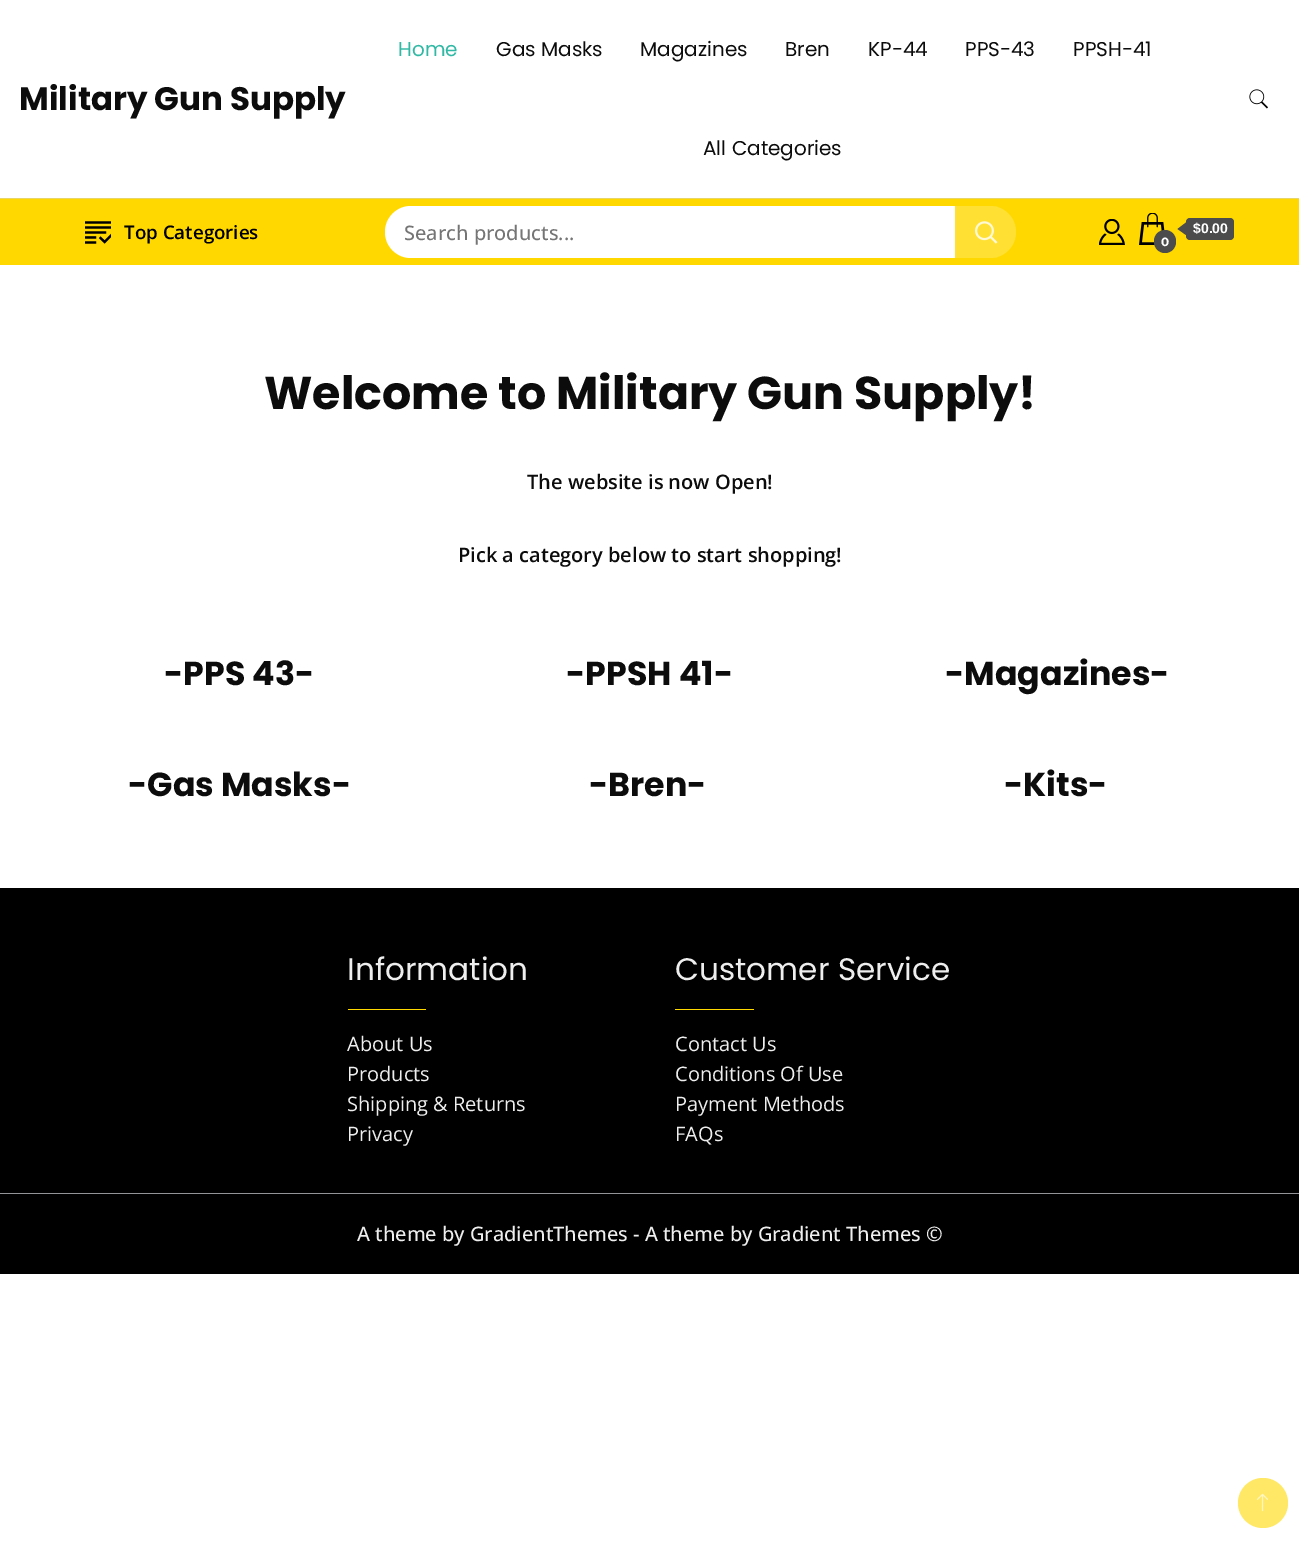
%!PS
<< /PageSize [1299 1558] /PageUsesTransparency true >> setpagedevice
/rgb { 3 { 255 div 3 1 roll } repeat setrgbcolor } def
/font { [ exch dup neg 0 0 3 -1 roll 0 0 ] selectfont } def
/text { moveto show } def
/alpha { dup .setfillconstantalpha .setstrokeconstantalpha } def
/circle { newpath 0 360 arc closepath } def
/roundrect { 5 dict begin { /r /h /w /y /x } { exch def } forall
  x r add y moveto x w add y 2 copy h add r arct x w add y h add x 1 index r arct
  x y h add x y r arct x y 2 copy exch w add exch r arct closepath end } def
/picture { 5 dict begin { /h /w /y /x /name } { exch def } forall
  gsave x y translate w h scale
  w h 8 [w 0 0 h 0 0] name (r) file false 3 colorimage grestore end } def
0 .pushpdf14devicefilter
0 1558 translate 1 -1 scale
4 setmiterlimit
255 255 255 rgb
0 0 1299 1558 rectfill
(img_01.rgb) 1249 89 19 20 picture
255 216 0 rgb
0 199 1299 66 rectfill
232 213 106 rgb
0 198 1299 1 rectfill
(img_02.rgb) 85 221 26 23 picture
255 255 255 rgb
385 206 631 52 26 roundrect fill
0.8 alpha
255 216 0 rgb
955 206 moveto 37 0 rlineto 14.5 0 26 11.5 26 26 rcurveto 0 14.5 -11.5 26 -26 26 rcurveto -37 0 rlineto closepath fill
1 alpha
(img_03.rgb) 975 221 23 23 picture
(img_04.rgb) 1099 219 26 26 picture
(img_05.rgb) 1139 213 26 32 picture
76 76 76 rgb
1186 218 48 22 4 roundrect fill
1186 222.5 moveto 0 12.5 rlineto -8.5 -6 rlineto closepath fill
1154 230 22 23 11 roundrect fill
0 0 0 rgb
0 888 1299 386 rectfill
255 216 0 rgb
348 1009 78 1 rectfill
675 1009 79 1 rectfill
146 148 151 rgb
0 1193 1299 1 rectfill
255 232 102 rgb
1263 1503 25 circle fill
(img_06.rgb) 1257 1493 11 19 picture
/Poppins-Bold 32.5 font
12 12 12 rgb
(Military Gun Supply) 19 110 text
/Poppins-Regular 20 font
50 185 165 rgb
(Home) 398 56 text
12 12 12 rgb
(Gas Masks) 496 56 text
(Magazines) 640 56 text
(Bren) 785 56 text
(KP-44) 868 56 text
(PPS-43) 965 56 text
(PPSH-41) 1073 56 text
(All Categories) 703 155 text
/OpenSans-SemiBold 18.75 font
0 0 0 rgb
(Top Categories) 124 239 text
/OpenSans-Medium 20 font
117 117 117 rgb
(Search products...) 404 240 text
/LiberationSans-Bold 14 font
255 255 255 rgb
($0.00) 1193 233 text
/Montserrat-Bold 12 font
(0) 1161 246 text
/Poppins-Bold 46 font
12 12 12 rgb
(Welcome to Military Gun Supply!) 264 409 text
/OpenSans-SemiBold 20 font
(The website is now Open!) 527 489 text
(Pick a category below to start shopping!) 458 562 text
/Poppins-Bold 33.25 font
(-PPS 43-) 164 685 text
(-PPSH 41-) 566 685 text
(-Magazines-) 945 685 text
(-Gas Masks-) 128 796 text
(-Bren-) 589 796 text
(-Kits-) 1004 796 text
/Poppins-Regular 31.1 font
238 238 238 rgb
(Information) 347 980 text
/OpenSans-Regular 20 font
(About Us) 347 1051 text
(Products) 347 1081 text
(Shipping & Returns) 347 1111 text
(Privacy) 347 1141 text
/Poppins-Regular 31.1 font
(Customer Service) 675 980 text
/OpenSans-Regular 20 font
(Contact Us) 675 1051 text
(Conditions Of Use) 675 1081 text
(Payment Methods) 675 1111 text
(FAQs) 675 1141 text
/OpenSans-Medium 20 font
(A theme by GradientThemes - A theme by Gradient Themes ©) 357 1241 text
.poppdf14devicefilter showpage
